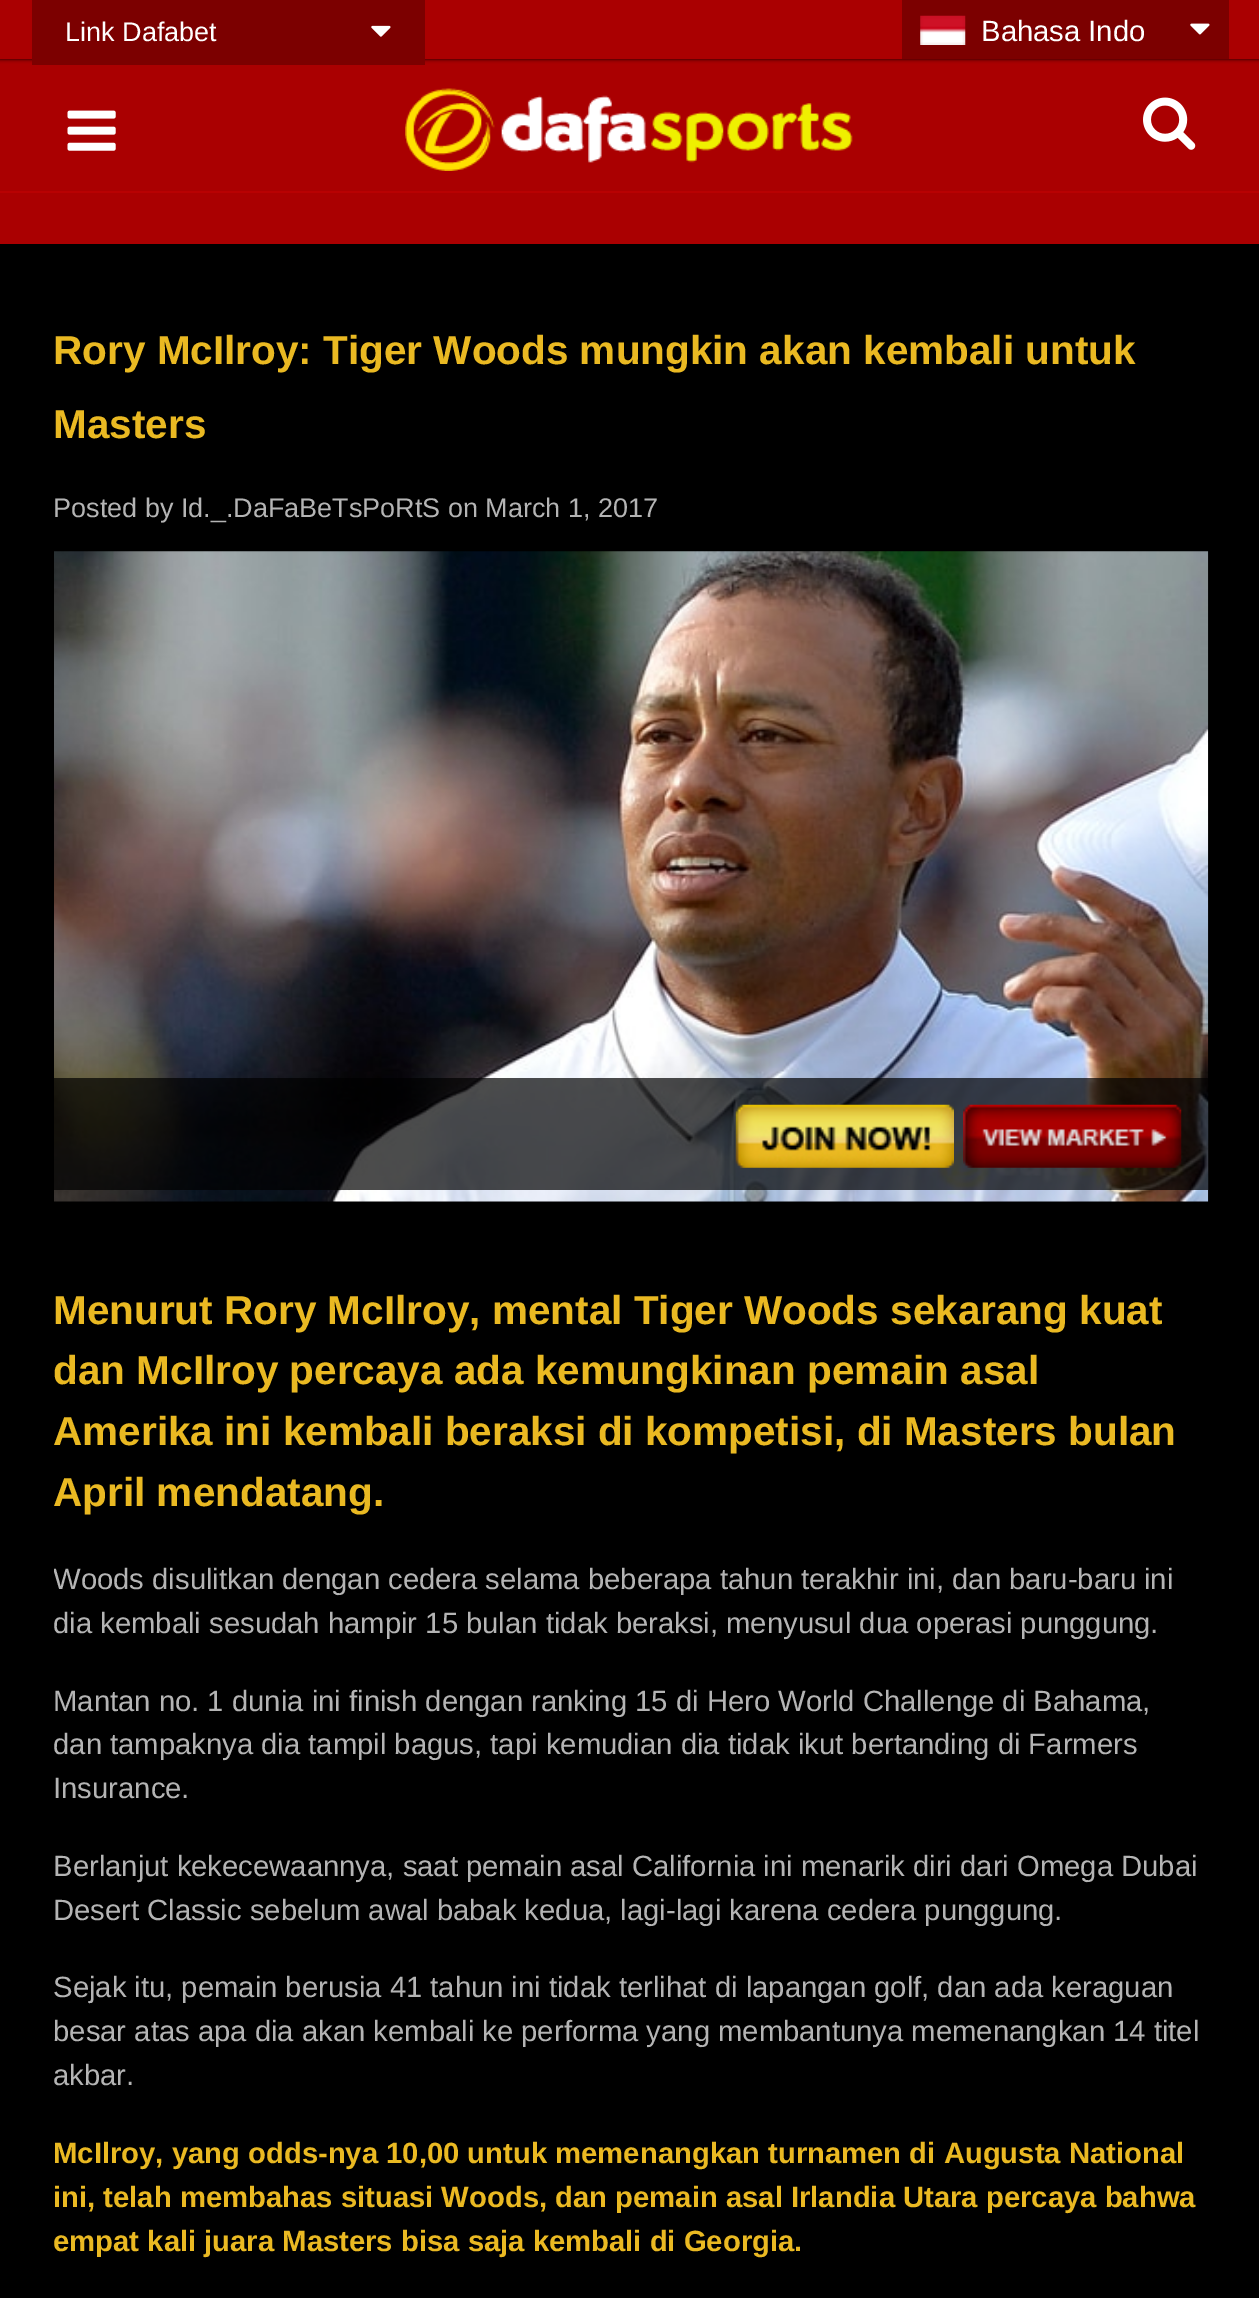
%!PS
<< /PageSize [1259 2298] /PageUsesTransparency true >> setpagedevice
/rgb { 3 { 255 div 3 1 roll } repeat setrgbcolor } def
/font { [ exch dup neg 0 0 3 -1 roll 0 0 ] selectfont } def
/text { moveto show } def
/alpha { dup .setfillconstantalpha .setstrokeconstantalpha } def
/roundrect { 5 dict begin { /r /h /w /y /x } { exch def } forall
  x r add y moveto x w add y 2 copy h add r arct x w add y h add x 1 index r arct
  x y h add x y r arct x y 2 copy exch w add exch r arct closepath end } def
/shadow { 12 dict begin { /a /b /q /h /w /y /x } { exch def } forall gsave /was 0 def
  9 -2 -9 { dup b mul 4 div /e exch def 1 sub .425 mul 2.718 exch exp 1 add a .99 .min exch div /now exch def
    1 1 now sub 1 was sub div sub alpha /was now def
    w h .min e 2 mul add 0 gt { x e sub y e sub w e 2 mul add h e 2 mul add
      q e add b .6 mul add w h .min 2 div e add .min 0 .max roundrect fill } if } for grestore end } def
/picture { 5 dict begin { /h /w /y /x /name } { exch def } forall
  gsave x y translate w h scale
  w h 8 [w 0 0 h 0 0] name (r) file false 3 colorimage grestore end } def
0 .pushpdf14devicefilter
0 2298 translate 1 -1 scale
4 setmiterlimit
0 0 0 rgb
0 0 1259 2298 rectfill
170 0 1 rgb
0 0 1259 244 rectfill
gsave
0 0 moveto 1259 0 rlineto 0 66 rlineto -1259 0 rlineto closepath 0 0 moveto 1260 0 rlineto 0 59 rlineto -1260 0 rlineto closepath eoclip newpath
0 0 0 rgb
0 0 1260 59 0 2 1 shadow
grestore
124 0 0 rgb
32 0 393 65 rectfill
(img_01.rgb) 371 25 20 12 picture
902 0 327 59 rectfill
(img_02.rgb) 920 15 46 30 picture
(img_03.rgb) 1190 23 20 12 picture
184 1 2 rgb
0 191 1259 2 rectfill
(img_04.rgb) 67 110 49 41 picture
(img_05.rgb) 405 88 448 83 picture
(img_06.rgb) 1143 97 53 53 picture
(img_07.rgb) 54 551 1155 651 picture
0.7 alpha
0 0 0 rgb
54 1078 1154 112 rectfill
1 alpha
(img_08.rgb) 735 1104 219 64 picture
(img_09.rgb) 963 1104 219 64 picture
/LiberationSans-Regular 27 font
255 255 255 rgb
(Link Dafabet) 65 41 text
/LiberationSans-Regular 29.25 font
(Bahasa Indo) 981 41 text
/LiberationSans-Bold 40.5 font
234 185 34 rgb
(Rory McIlroy: Tiger Woods mungkin akan kembali untuk) 53 364 text
(Masters) 53 438 text
/LiberationSans-Regular 27 font
180 180 180 rgb
(Posted by Id._.DaFaBeTsPoRtS on March 1, 2017) 53 517 text
/LiberationSans-Bold 40.5 font
234 185 34 rgb
(Menurut Rory McIlroy, mental Tiger Woods sekarang kuat) 53 1324 text
(dan McIlroy percaya ada kemungkinan pemain asal) 53 1384 text
(Amerika ini kembali beraksi di kompetisi, di Masters bulan) 53 1445 text
(April mendatang.) 53 1506 text
gsave
54 529 1154 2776 rectclip
/LiberationSans-Regular 29.25 font
180 180 180 rgb
(Woods disulitkan dengan cedera selama beberapa tahun terakhir ini, dan baru-baru ini) 53 1589 text
grestore
/LiberationSans-Regular 29.25 font
180 180 180 rgb
(dia kembali sesudah hampir 15 bulan tidak beraksi, menyusul dua operasi punggung.) 53 1633 text
(Mantan no. 1 dunia ini finish dengan ranking 15 di Hero World Challenge di Bahama,) 53 1711 text
(dan tampaknya dia tampil bagus, tapi kemudian dia tidak ikut bertanding di Farmers) 53 1754 text
(Insurance.) 53 1798 text
(Berlanjut kekecewaannya, saat pemain asal California ini menarik diri dari Omega Dubai) 53 1876 text
(Desert Classic sebelum awal babak kedua, lagi-lagi karena cedera punggung.) 53 1920 text
(Sejak itu, pemain berusia 41 tahun ini tidak terlihat di lapangan golf, dan ada keraguan) 53 1997 text
(besar atas apa dia akan kembali ke performa yang membantunya memenangkan 14 titel) 53 2041 text
(akbar.) 53 2085 text
/LiberationSans-Bold 29.25 font
234 185 34 rgb
(McIlroy, yang odds-nya 10,00 untuk memenangkan turnamen di Augusta National) 53 2163 text
(ini, telah membahas situasi Woods, dan pemain asal Irlandia Utara percaya bahwa) 53 2207 text
(empat kali juara Masters bisa saja kembali di Georgia.) 53 2251 text
.poppdf14devicefilter showpage
